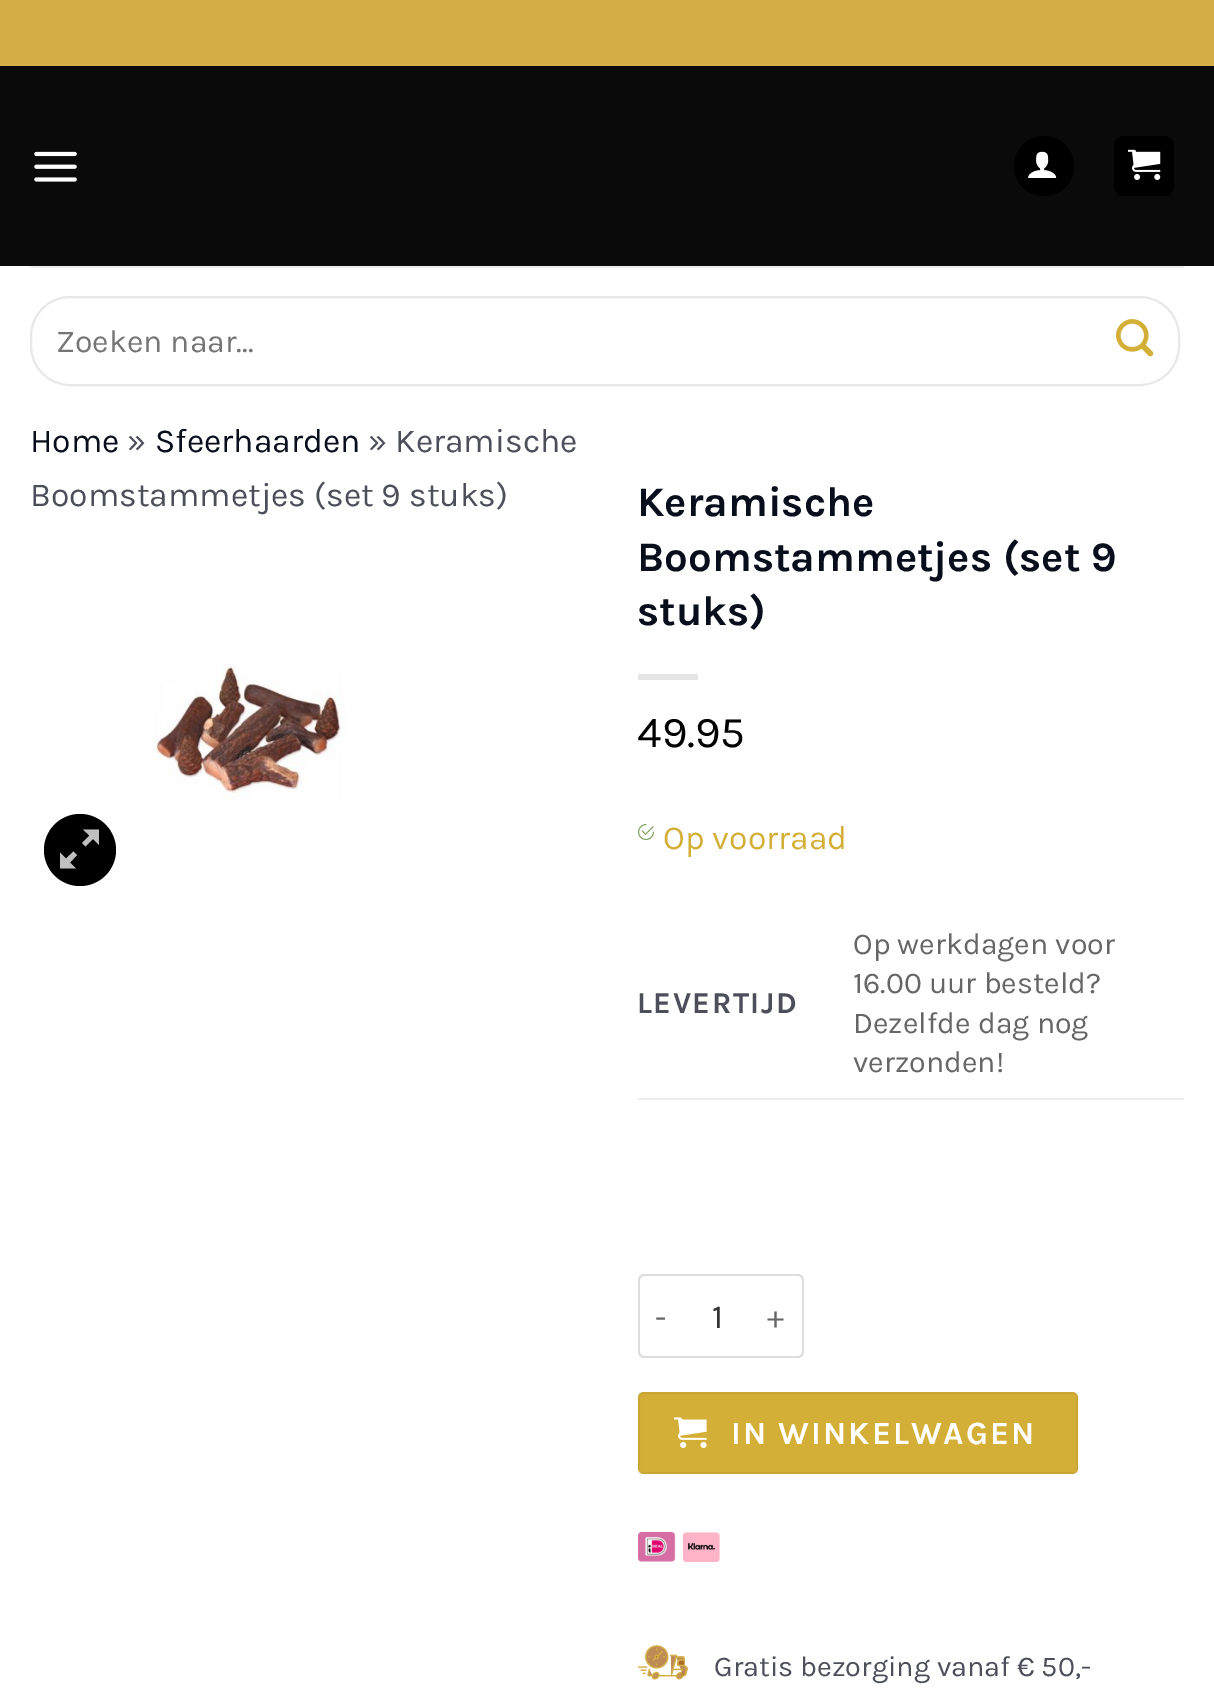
%!PS
<< /PageSize [1214 1696] /PageUsesTransparency true >> setpagedevice
/rgb { 3 { 255 div 3 1 roll } repeat setrgbcolor } def
/font { [ exch dup neg 0 0 3 -1 roll 0 0 ] selectfont } def
/text { moveto show } def
/alpha { dup .setfillconstantalpha .setstrokeconstantalpha } def
/circle { newpath 0 360 arc closepath } def
/roundrect { 5 dict begin { /r /h /w /y /x } { exch def } forall
  x r add y moveto x w add y 2 copy h add r arct x w add y h add x 1 index r arct
  x y h add x y r arct x y 2 copy exch w add exch r arct closepath end } def
/picture { 5 dict begin { /h /w /y /x /name } { exch def } forall
  gsave x y translate w h scale
  w h 8 [w 0 0 h 0 0] name (r) file false 3 colorimage grestore end } def
0 .pushpdf14devicefilter
0 1696 translate 1 -1 scale
4 setmiterlimit
255 255 255 rgb
0 0 1214 1696 rectfill
212 175 71 rgb
0 0 1214 66 rectfill
10 10 10 rgb
0 66 1214 200 rectfill
(img_01.rgb) 34 151 43 31 picture
0 0 0 rgb
1044 166 30 circle fill
(img_02.rgb) 1028 151 29 27 picture
1114 136 60 60 10 roundrect fill
(img_03.rgb) 1128 149 33 31 picture
237 237 239 rgb
30 266 1154 2 rectfill
232 232 232 rgb
2 setlinewidth
31 297 1148 88 39 roundrect stroke
(img_04.rgb) 1116 319 38 38 picture
(img_05.rgb) 153 664 193 137 picture
0 0 0 rgb
80 850 36 circle fill
192 192 192 rgb
99 829.5 moveto 0 15.5 rlineto -6 -6 rlineto -7.5 7.5 rlineto -3.5 -3.5 rlineto 7.5 -7.5 rlineto -6.5 -6 rlineto closepath 77 855 moveto -7 7.5 rlineto 6 6 rlineto -16 0 rlineto 0 -16 rlineto 6 6 rlineto 7.5 -7 rlineto closepath fill
230 230 230 rgb
638 674 60 6 rectfill
(img_06.rgb) 638 824 16 16 picture
236 236 236 rgb
638 1098 546 2 rectfill
221 221 221 rgb
644 1274 moveto 40 0 rlineto 0 84 rlineto -40 0 rlineto -3 0 -6 -3 -6 -6 rcurveto 0 -72 rlineto 0 -3 3 -6 6 -6 rcurveto closepath 644 1276 moveto 40 0 rlineto 0 80 rlineto -40 0 rlineto -2 0 -4 -2 -4 -4 rcurveto 0 -72 rlineto 0 -2 2 -4 4 -4 rcurveto closepath eofill
684 1274 68 2 rectfill
684 1356 68 2 rectfill
752 1274 moveto 46 0 rlineto 3 0 6 3 6 6 rcurveto 0 72 rlineto 0 3 -3 6 -6 6 rcurveto -46 0 rlineto closepath 752 1276 moveto 46 0 rlineto 2 0 4 2 4 4 rcurveto 0 72 rlineto 0 2 -2 4 -4 4 rcurveto -46 0 rlineto closepath eofill
212 175 55 rgb
638 1392 440 82 6 roundrect fill
0.05 alpha
0 0 0 rgb
639 1393 438 80 rectstroke
1 alpha
(img_07.rgb) 674 1417 33 31 picture
(img_08.rgb) 638 1532 82 30 picture
(img_09.rgb) 638 1645 50 35 picture
/Karla-Regular 32 font
117 117 117 rgb
(Zoeken naar...) 56 352 text
/Karla-Regular 33.6 font
9 14 29 rgb
(Home) 30 452 text
76 79 90 rgb
(») 127 452 text
9 14 29 rgb
(Sfeerhaarden) 155 452 text
76 79 90 rgb
(» Keramische) 368 452 text
(Boomstammetjes \(set 9 stuks\)) 30 506 text
/Karla-Bold 42 font
9 14 29 rgb
(Keramische) 637 516 text
(Boomstammetjes \(set 9) 637 571 text
(stuks\)) 637 625 text
/Karla-Regular 44 font
0 0 0 rgb
(49.95) 637 747 text
/Karla-Regular 33.6 font
212 175 55 rgb
(Op voorraad) 663 849 text
/Karla-Bold 30.25 font
76 79 90 rgb
637 1013 moveto 1.5 0 (LEVERTIJD) ashow
/Karla-Regular 30.25 font
102 102 102 rgb
(Op werkdagen voor) 853 954 text
(16.00 uur besteld?) 853 993 text
(Dezelfde dag nog) 853 1033 text
(verzonden!) 853 1072 text
/Karla-Regular 32.5 font
655 1328 moveto 1 0 (-) ashow
/Karla-Regular 33.6 font
51 51 51 rgb
(1) 712 1328 text
/Karla-Regular 32.5 font
102 102 102 rgb
767 1328 moveto 1 0 (+) ashow
/Karla-Bold 32.5 font
255 255 255 rgb
731 1444 moveto 2 0 (IN WINKELWAGEN) ashow
/Karla-Regular 28.75 font
76 79 90 rgb
(Gratis bezorging vanaf € 50,-) 714 1676 text
.poppdf14devicefilter showpage
